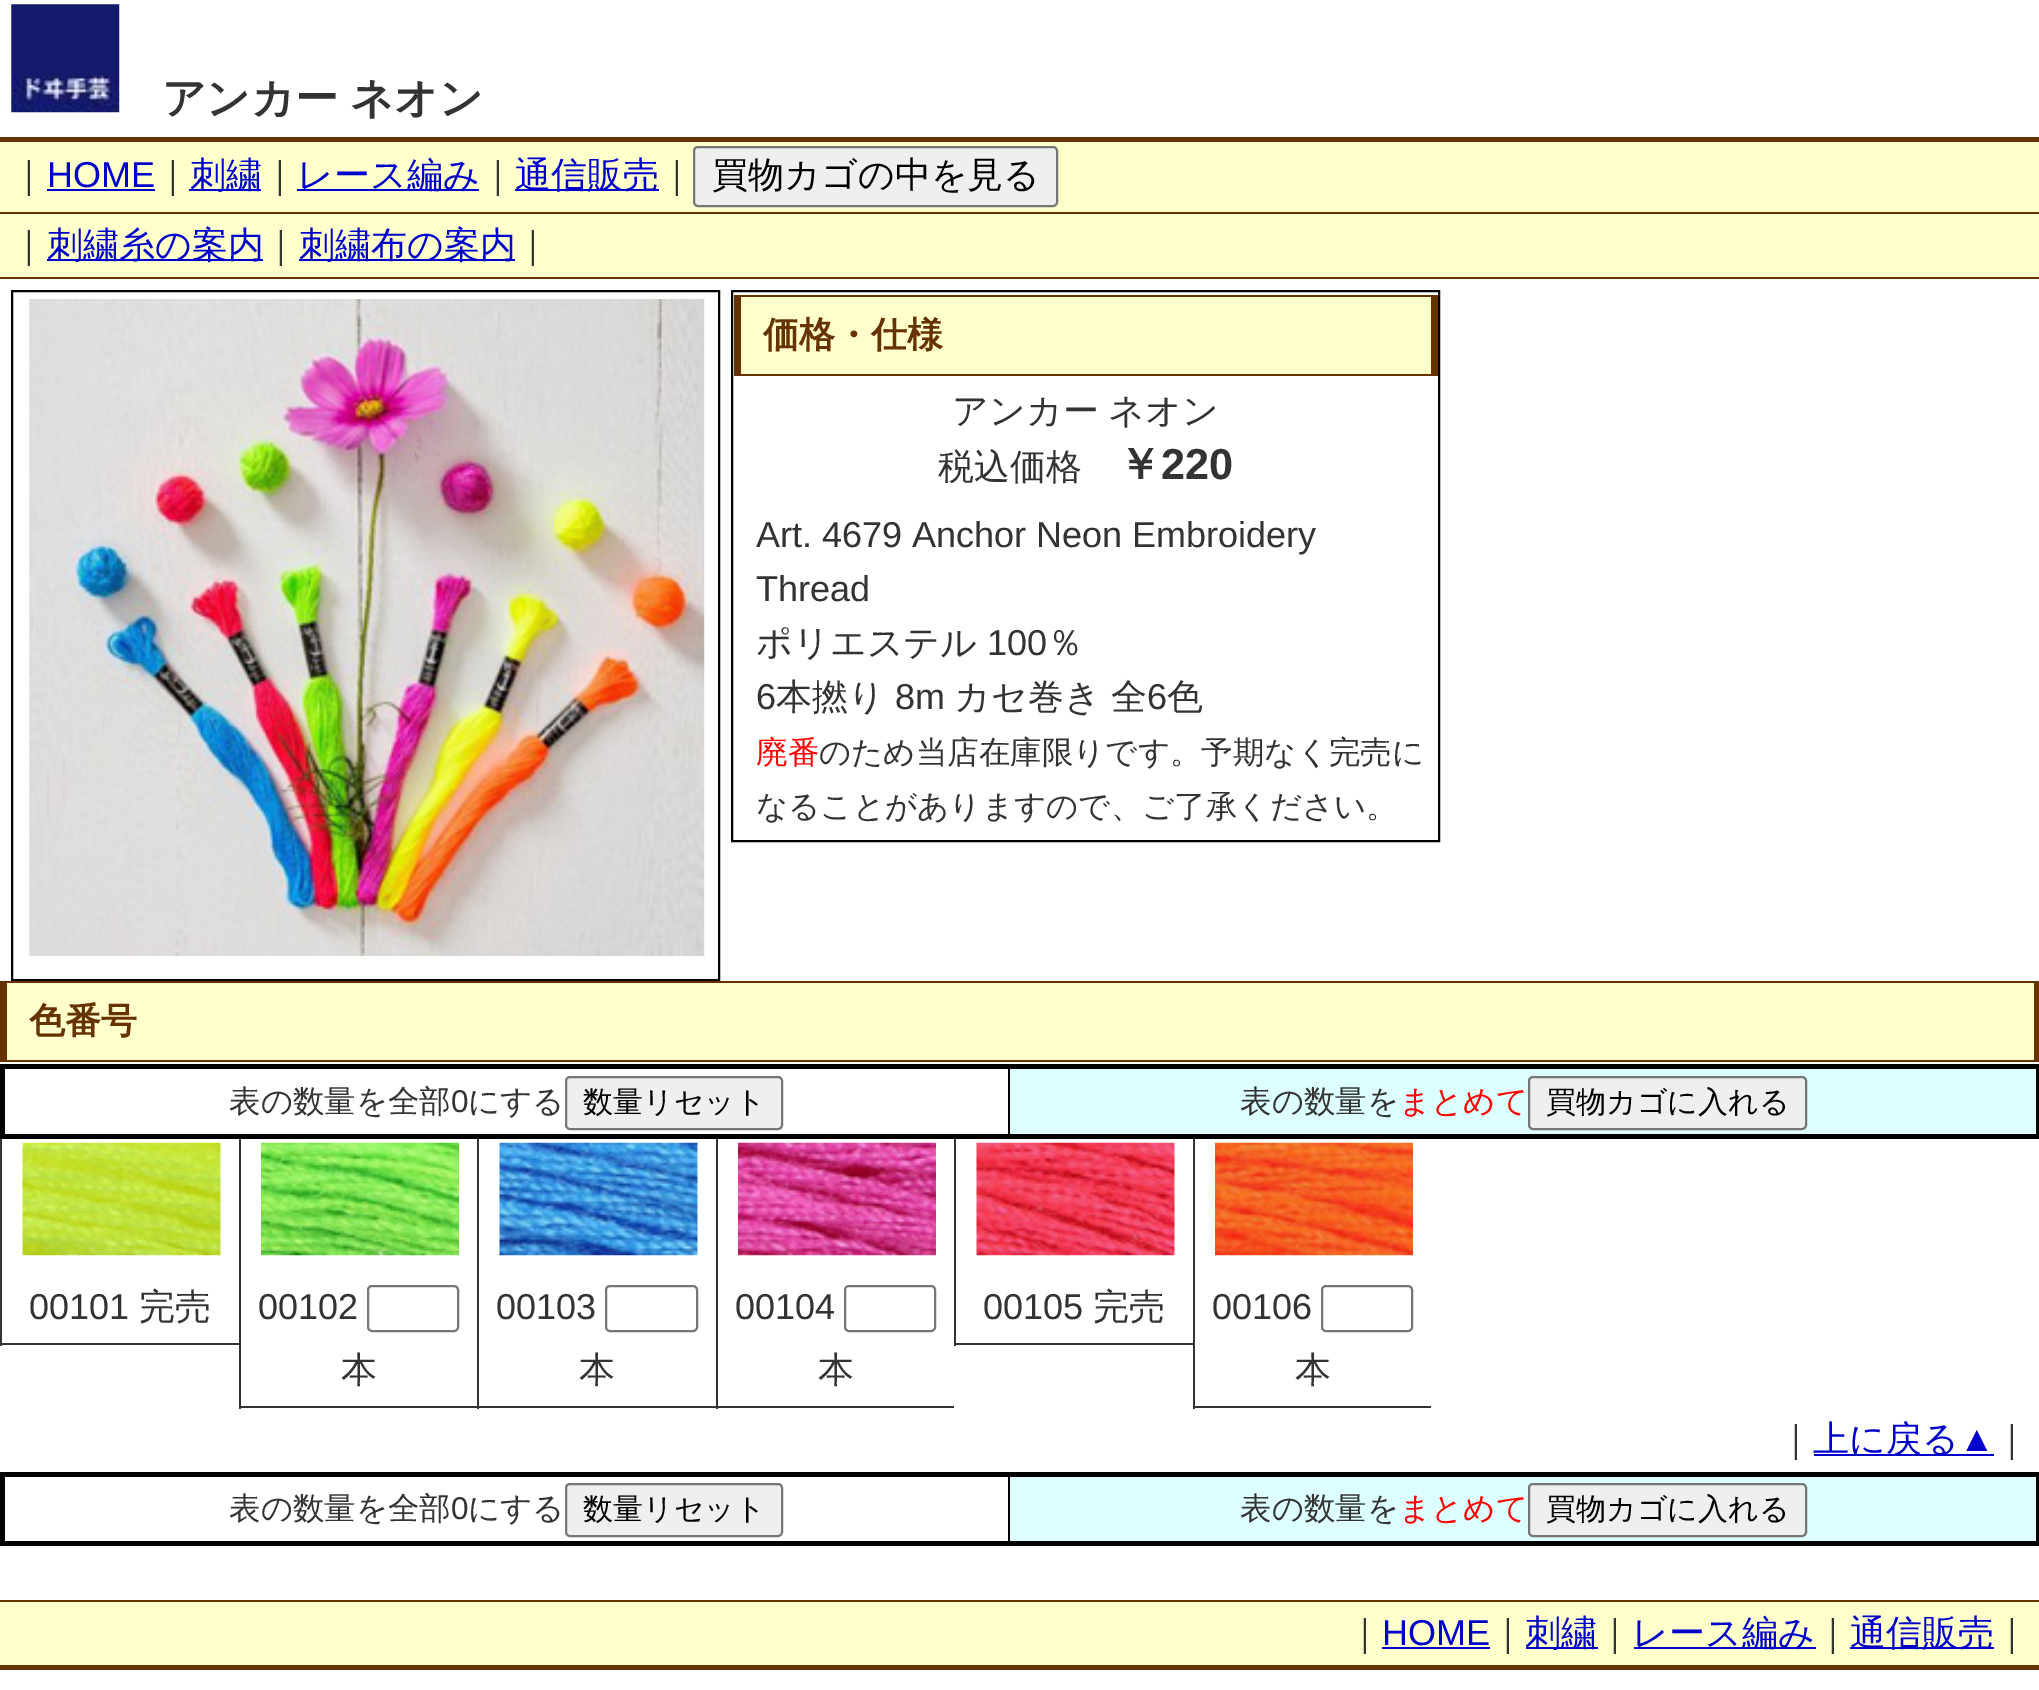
%!PS
<< /PageSize [2039 1690] >> setpagedevice
/rgb { 3 { 255 div 3 1 roll } repeat setrgbcolor } def
/font { [ exch dup neg 0 0 3 -1 roll 0 0 ] selectfont } def
/text { moveto show } def
/roundrect { 5 dict begin { /r /h /w /y /x } { exch def } forall
  x r add y moveto x w add y 2 copy h add r arct x w add y h add x 1 index r arct
  x y h add x y r arct x y 2 copy exch w add exch r arct closepath end } def
/picture { 5 dict begin { /h /w /y /x /name } { exch def } forall
  gsave x y translate w h scale
  w h 8 [w 0 0 h 0 0] name (r) file false 3 colorimage grestore end } def
0 1690 translate 1 -1 scale
4 setmiterlimit
255 255 255 rgb
0 0 2039 1690 rectfill
102 51 0 rgb
0 137 2039 5 rectfill
(img_01.rgb) 11 4 109 109 picture
255 255 204 rgb
0 142 2039 70 rectfill
102 51 0 rgb
0 212 2039 2 rectfill
0 0 204 rgb
47 189 108 2 rectfill
189 189 72 2 rectfill
297 189 182 2 rectfill
515 189 144 2 rectfill
239 239 239 rgb
694 147 363 59 4 roundrect gsave fill grestore
118 118 118 rgb
2 setlinewidth
stroke
255 255 204 rgb
0 214 2039 63 rectfill
102 51 0 rgb
0 277 2039 2 rectfill
0 0 204 rgb
47 259 216 2 rectfill
299 259 216 2 rectfill
0 0 0 rgb
12 291 707 689 rectstroke
(img_02.rgb) 29 299 676 657 picture
732 291 707 550 rectstroke
255 255 204 rgb
741 297 690 77 rectfill
102 51 0 rgb
734 295 704 2 rectfill
1431 295 7 81 rectfill
734 374 704 2 rectfill
734 295 7 81 rectfill
255 255 204 rgb
7 983 2027 77 rectfill
102 51 0 rgb
0 981 2039 2 rectfill
2034 981 5 81 rectfill
0 1060 2039 2 rectfill
0 981 7 81 rectfill
0 0 0 rgb
1008 1067 2 72 rectfill
0 1064 2039 5 rectfill
2036 1064 3 75 rectfill
0 1134 2039 5 rectfill
0 1064 5 75 rectfill
239 239 239 rgb
566 1077 216 52 4 roundrect gsave fill grestore
118 118 118 rgb
stroke
221 255 255 rgb
1010 1069 1026 65 rectfill
239 239 239 rgb
1529 1077 277 52 4 roundrect gsave fill grestore
118 118 118 rgb
stroke
51 51 51 rgb
0 1343 239 2 rectfill
0 1139 2 207 rectfill
(img_03.rgb) 22 1142 199 114 picture
239 1406 715 2 rectfill
239 1139 2 270 rectfill
(img_04.rgb) 261 1142 198 114 picture
118 118 118 rgb
368 1286 90 45 4 roundrect stroke
51 51 51 rgb
477 1139 2 270 rectfill
(img_05.rgb) 499 1142 199 114 picture
118 118 118 rgb
606 1286 91 45 4 roundrect stroke
51 51 51 rgb
716 1139 2 270 rectfill
(img_06.rgb) 738 1142 198 114 picture
118 118 118 rgb
845 1286 90 45 4 roundrect stroke
51 51 51 rgb
954 1343 239 2 rectfill
954 1139 2 207 rectfill
(img_07.rgb) 976 1142 199 114 picture
1193 1406 238 2 rectfill
1193 1139 2 270 rectfill
(img_08.rgb) 1215 1142 198 114 picture
118 118 118 rgb
1322 1286 90 45 4 roundrect stroke
0 0 204 rgb
1814 1454 180 2 rectfill
0 0 0 rgb
1008 1474 2 72 rectfill
0 1472 2039 5 rectfill
2036 1472 3 74 rectfill
0 1541 2039 5 rectfill
0 1472 5 74 rectfill
239 239 239 rgb
566 1484 216 52 4 roundrect gsave fill grestore
118 118 118 rgb
stroke
221 255 255 rgb
1010 1477 1026 64 rectfill
239 239 239 rgb
1529 1484 277 52 4 roundrect gsave fill grestore
118 118 118 rgb
stroke
255 255 204 rgb
0 1602 2039 63 rectfill
102 51 0 rgb
0 1600 2039 2 rectfill
0 0 204 rgb
1382 1647 108 2 rectfill
1526 1647 72 2 rectfill
1634 1647 182 2 rectfill
1850 1647 144 2 rectfill
102 51 0 rgb
0 1665 2039 5 rectfill
/WenQuanYiZenHei-Bold 43.25 font
51 51 51 rgb
162 113 moveto -1 0 32 (アンカー ネオン) widthshow
/WenQuanYiZenHei-Medium 36 font
(｜) 11 187 text
/LiberationSans-Regular 36 font
0 0 204 rgb
(HOME) 47 187 text
/WenQuanYiZenHei-Medium 36 font
51 51 51 rgb
(｜) 155 187 text
0 0 204 rgb
(刺繍) 190 187 text
51 51 51 rgb
(｜) 262 187 text
0 0 204 rgb
(レース編み) 297 187 text
51 51 51 rgb
(｜) 480 187 text
0 0 204 rgb
(通信販売) 515 187 text
51 51 51 rgb
(｜) 659 187 text
0 0 0 rgb
(買物カゴの中を見る) 712 187 text
51 51 51 rgb
(｜) 11 257 text
0 0 204 rgb
(刺繍糸の案内) 47 257 text
51 51 51 rgb
(｜) 263 257 text
0 0 204 rgb
(刺繍布の案内) 299 257 text
51 51 51 rgb
(｜) 515 257 text
/WenQuanYiZenHei-Bold 36 font
102 51 0 rgb
(価格・仕様) 763 347 text
/WenQuanYiZenHei-Medium 36 font
51 51 51 rgb
952 423 moveto -1 0 32 (アンカー ネオン) widthshow
(税込価格) 938 479 text
/WenQuanYiZenHei-Bold 43.25 font
(￥) 1118 479 text
/LiberationSans-Bold 43.25 font
(220) 1161 479 text
/LiberationSans-Regular 36 font
(Art. 4679 Anchor Neon Embroidery) 756 547 text
(Thread) 756 601 text
/WenQuanYiZenHei-Medium 36 font
(ポリエステル) 756 655 text
/LiberationSans-Regular 36 font
(100) 987 655 text
/WenQuanYiZenHei-Medium 36 font
(％) 1047 655 text
/LiberationSans-Regular 36 font
(6) 756 709 text
/WenQuanYiZenHei-Medium 36 font
(本撚り) 776 709 text
/LiberationSans-Regular 36 font
(8m) 895 709 text
/WenQuanYiZenHei-Medium 36 font
(カセ巻き 全) 954 709 text
/LiberationSans-Regular 36 font
(6) 1147 709 text
/WenQuanYiZenHei-Medium 36 font
(色) 1167 709 text
/WenQuanYiZenHei-Medium 31.5 font
255 0 0 rgb
(廃番) 756 763 text
51 51 51 rgb
(のため当店在庫限りです。予期なく完売に) 819 763 text
(なることがありますので、ご了承ください。) 756 817 text
/WenQuanYiZenHei-Bold 36 font
102 51 0 rgb
(色番号) 29 1033 text
/WenQuanYiZenHei-Medium 31.5 font
51 51 51 rgb
(表の数量を全部) 229 1112 text
/LiberationSans-Regular 31.5 font
(0) 451 1112 text
/WenQuanYiZenHei-Medium 31.5 font
(にする) 468 1112 text
/WenQuanYiZenHei-Medium 30 font
0 0 0 rgb
(数量リセット) 583 1112 text
/WenQuanYiZenHei-Medium 31.5 font
51 51 51 rgb
(表の数量を) 1240 1112 text
255 0 0 rgb
(まとめて) 1399 1112 text
/WenQuanYiZenHei-Medium 30 font
0 0 0 rgb
(買物カゴに入れる) 1546 1112 text
/LiberationSans-Regular 36 font
51 51 51 rgb
(00101) 29 1319 text
/WenQuanYiZenHei-Medium 36 font
(完売) 139 1319 text
/LiberationSans-Regular 36 font
(00102) 258 1319 text
/WenQuanYiZenHei-Medium 36 font
(本) 341 1382 text
/LiberationSans-Regular 36 font
(00103) 496 1319 text
/WenQuanYiZenHei-Medium 36 font
(本) 579 1382 text
/LiberationSans-Regular 36 font
(00104) 735 1319 text
/WenQuanYiZenHei-Medium 36 font
(本) 818 1382 text
/LiberationSans-Regular 36 font
(00105) 983 1319 text
/WenQuanYiZenHei-Medium 36 font
(完売) 1093 1319 text
/LiberationSans-Regular 36 font
(00106) 1212 1319 text
/WenQuanYiZenHei-Medium 36 font
(本) 1295 1382 text
(｜) 1778 1451 text
0 0 204 rgb
(上に戻る) 1813 1451 text
/LiberationSans-Regular 36 font
(▲) 1959 1451 text
/WenQuanYiZenHei-Medium 36 font
51 51 51 rgb
(｜) 1994 1451 text
/WenQuanYiZenHei-Medium 31.5 font
(表の数量を全部) 229 1519 text
/LiberationSans-Regular 31.5 font
(0) 451 1519 text
/WenQuanYiZenHei-Medium 31.5 font
(にする) 468 1519 text
/WenQuanYiZenHei-Medium 30 font
0 0 0 rgb
(数量リセット) 583 1519 text
/WenQuanYiZenHei-Medium 31.5 font
51 51 51 rgb
(表の数量を) 1240 1519 text
255 0 0 rgb
(まとめて) 1399 1519 text
/WenQuanYiZenHei-Medium 30 font
0 0 0 rgb
(買物カゴに入れる) 1546 1519 text
/WenQuanYiZenHei-Medium 36 font
51 51 51 rgb
(｜) 1347 1645 text
/LiberationSans-Regular 36 font
0 0 204 rgb
(HOME) 1382 1645 text
/WenQuanYiZenHei-Medium 36 font
51 51 51 rgb
(｜) 1490 1645 text
0 0 204 rgb
(刺繍) 1525 1645 text
51 51 51 rgb
(｜) 1597 1645 text
0 0 204 rgb
(レース編み) 1632 1645 text
51 51 51 rgb
(｜) 1815 1645 text
0 0 204 rgb
(通信販売) 1850 1645 text
51 51 51 rgb
(｜) 1994 1645 text
showpage
